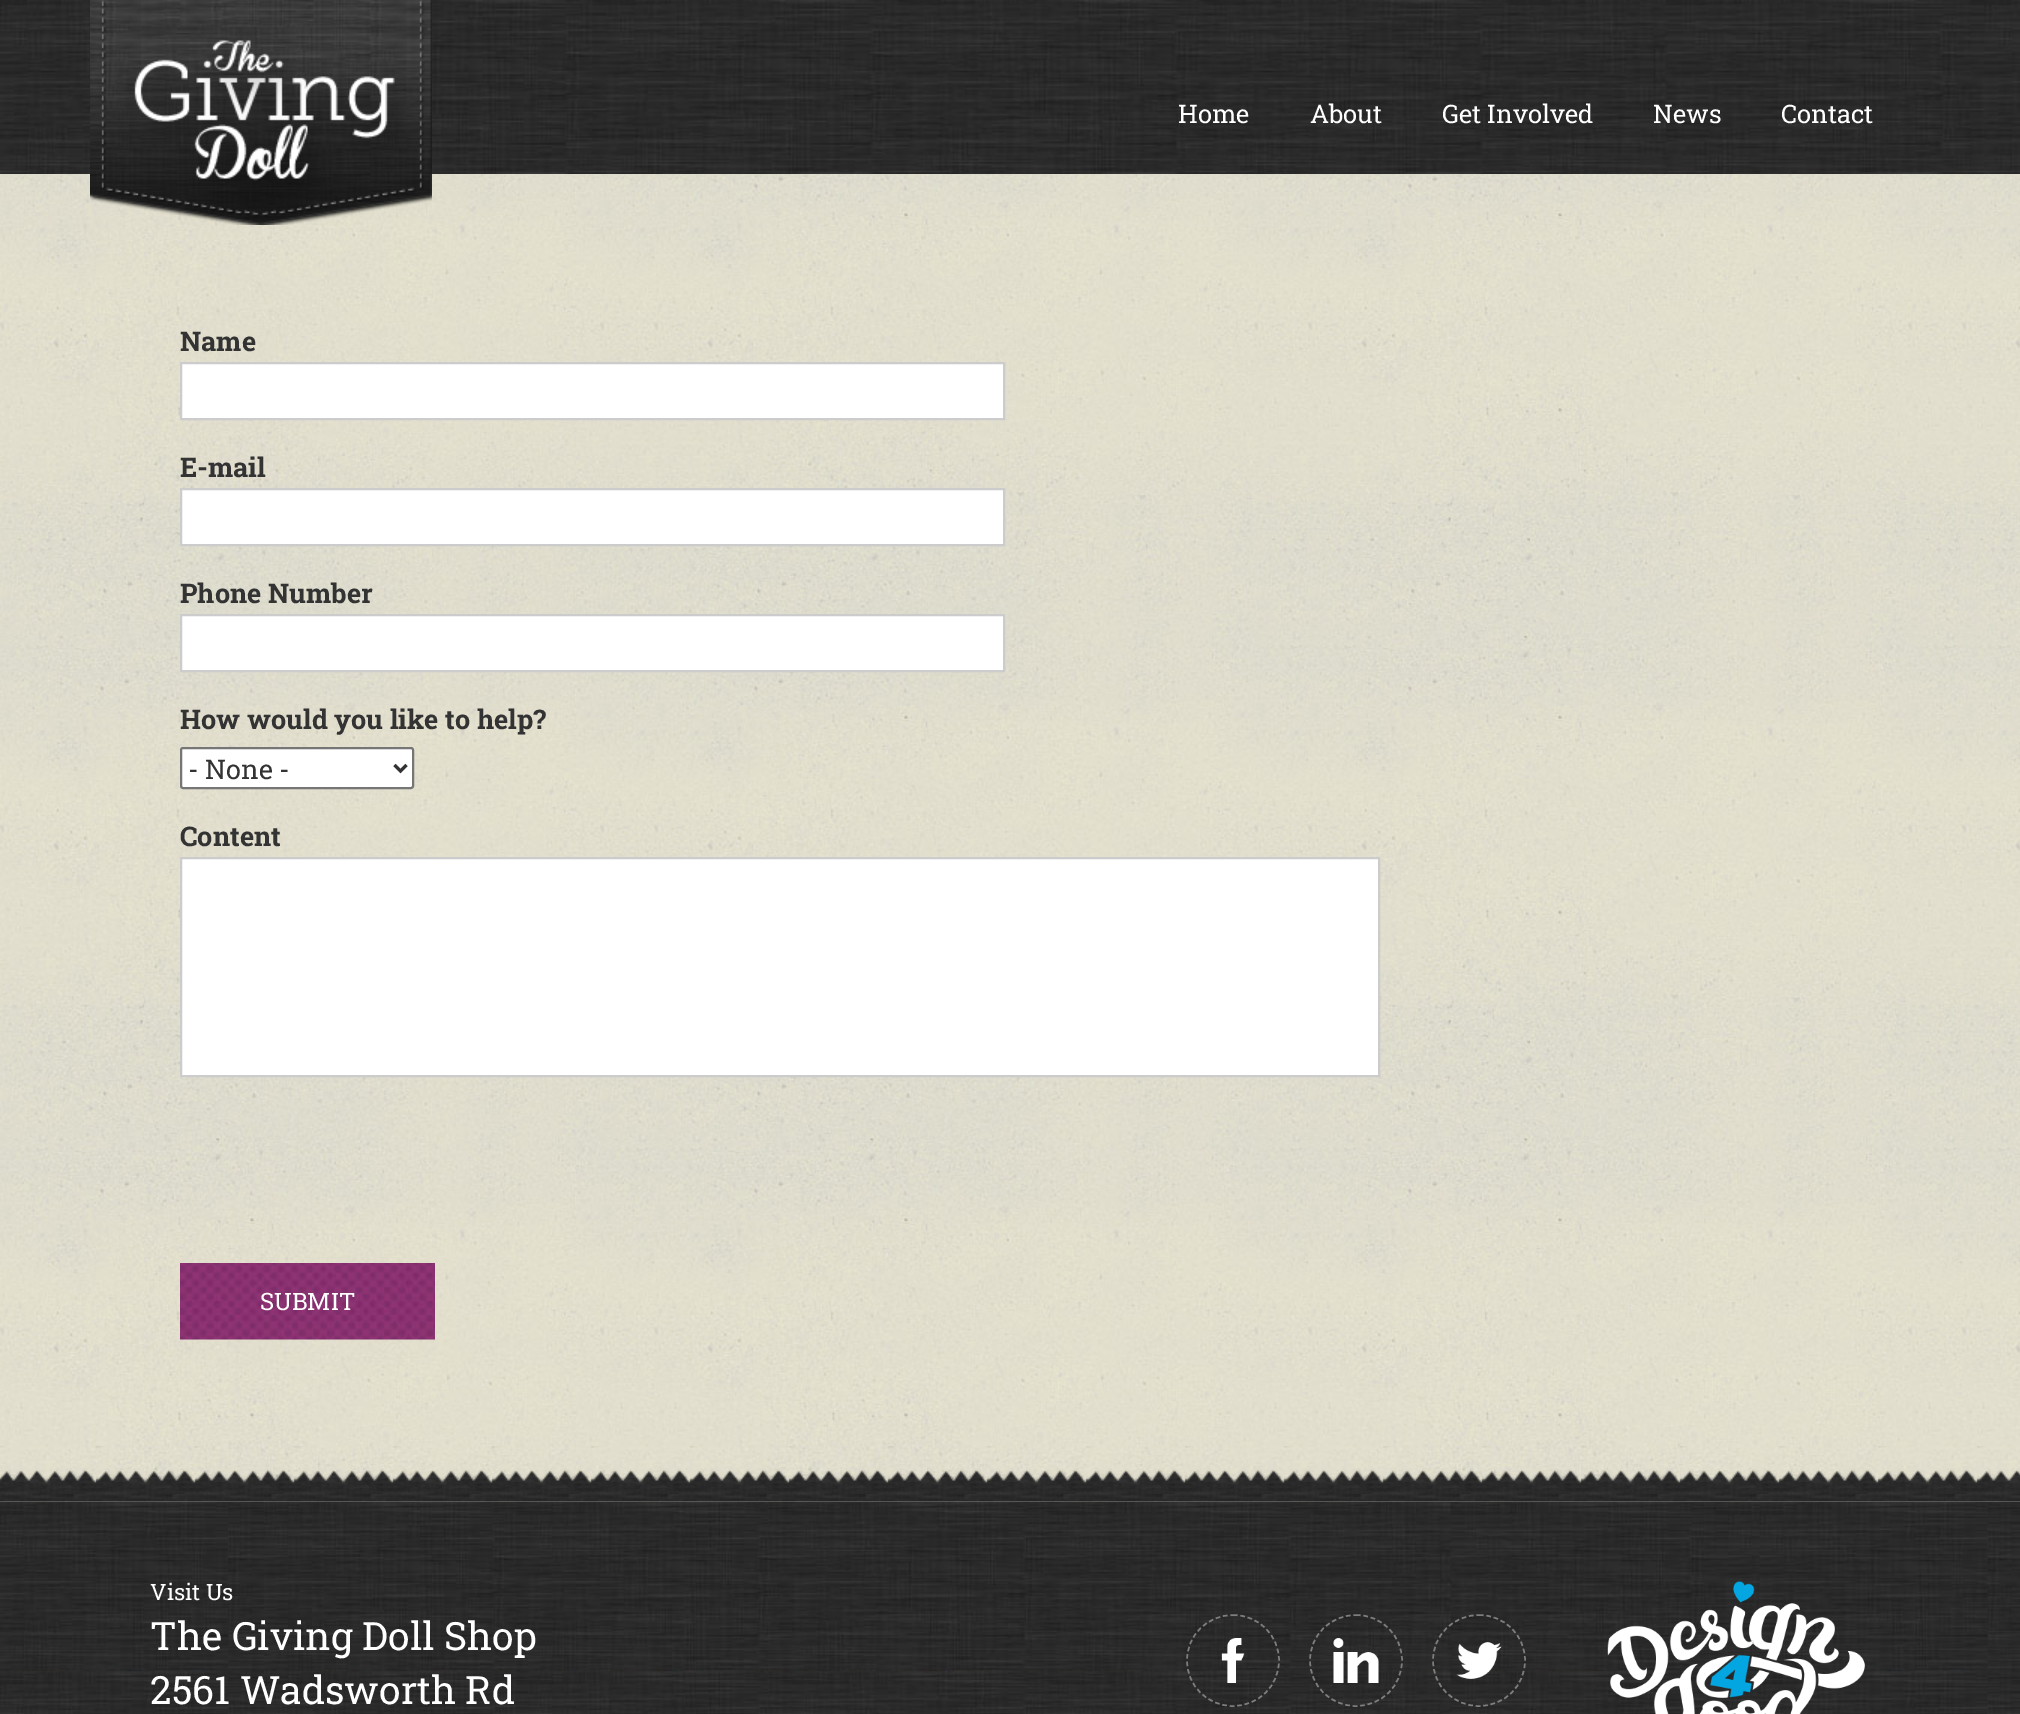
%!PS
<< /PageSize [2020 1714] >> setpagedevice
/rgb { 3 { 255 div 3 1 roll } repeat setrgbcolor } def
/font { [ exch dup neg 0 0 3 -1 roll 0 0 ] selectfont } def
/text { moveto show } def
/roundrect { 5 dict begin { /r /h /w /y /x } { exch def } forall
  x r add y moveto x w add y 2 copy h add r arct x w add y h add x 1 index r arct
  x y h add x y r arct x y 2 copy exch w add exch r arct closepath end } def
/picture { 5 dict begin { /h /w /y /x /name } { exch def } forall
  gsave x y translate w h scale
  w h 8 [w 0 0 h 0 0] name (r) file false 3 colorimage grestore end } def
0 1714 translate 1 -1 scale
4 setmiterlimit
255 255 255 rgb
0 0 2020 1714 rectfill
(img_01.rgb) 0 174 2020 1328 picture
(img_02.rgb) 0 0 2020 174 picture
(img_03.rgb) 90 0 342 225 picture
181 363 moveto 823 0 rlineto 0 56 rlineto -823 0 rlineto closepath gsave fill grestore
204 204 204 rgb
2 setlinewidth
stroke
255 255 255 rgb
181 489 moveto 823 0 rlineto 0 56 rlineto -823 0 rlineto closepath gsave fill grestore
204 204 204 rgb
stroke
255 255 255 rgb
181 615 moveto 823 0 rlineto 0 56 rlineto -823 0 rlineto closepath gsave fill grestore
204 204 204 rgb
stroke
255 255 255 rgb
181 748 232 40 2 roundrect gsave fill grestore
118 118 118 rgb
stroke
51 51 51 rgb
3 setlinewidth
394.5 765 moveto 6 6 rlineto 6 -6 rlineto stroke
255 255 255 rgb
181 858 moveto 1198 0 rlineto 0 218 rlineto -1198 0 rlineto closepath gsave fill grestore
204 204 204 rgb
2 setlinewidth
stroke
(img_04.rgb) 180 1263 255 77 picture
(img_05.rgb) 0 1501 2020 213 picture
(img_06.rgb) 0 1446 2020 56 picture
126 126 126 rgb
1.5 setlinewidth
[4.5 3] 0 setdash
1233 1615 moveto 25.5 0 46 20 46 45.5 rcurveto 0 25.5 -20.5 45.5 -46 45.5 rcurveto -25.5 0 -46 -20 -46 -45.5 rcurveto 0 -25.5 20.5 -45.5 46 -45.5 rcurveto closepath stroke
(img_07.rgb) 1221 1638 24 45 picture
1356 1615 moveto 25.5 0 46 20 46 45.5 rcurveto 0 25.5 -20.5 45.5 -46 45.5 rcurveto -25.5 0 -46 -20 -46 -45.5 rcurveto 0 -25.5 20.5 -45.5 46 -45.5 rcurveto closepath stroke
(img_08.rgb) 1333 1638 46 45 picture
1479 1615 moveto 25.5 0 46 20 46 45.5 rcurveto 0 25.5 -20.5 45.5 -46 45.5 rcurveto -25.5 0 -46 -20 -46 -45.5 rcurveto 0 -25.5 20.5 -45.5 46 -45.5 rcurveto closepath stroke
(img_09.rgb) 1456 1642 46 37 picture
(img_10.rgb) 1607 1581 258 133 picture
/RobotoSlab-Regular 25.5 font
255 255 255 rgb
(Home) 1178 123 text
(About) 1310 123 text
(Get Involved) 1442 123 text
(News) 1653 123 text
(Contact) 1781 123 text
/RobotoSlab-Bold 27 font
51 51 51 rgb
(Name) 180 351 text
(E-mail) 180 477 text
(Phone Number) 180 603 text
(How would you like to help?) 180 729 text
/RobotoSlab-Regular 27 font
(- None -) 188 779 text
/RobotoSlab-Bold 27 font
(Content) 180 846 text
/RobotoSlab-Regular 24 font
255 255 255 rgb
(SUBMIT) 260 1310 text
/RobotoSlab-Regular 22.5 font
(Visit Us) 150 1600 text
/RobotoSlab-Regular 39 font
(The Giving Doll Shop) 150 1650 text
(2561 Wadsworth Rd) 150 1704 text
showpage
